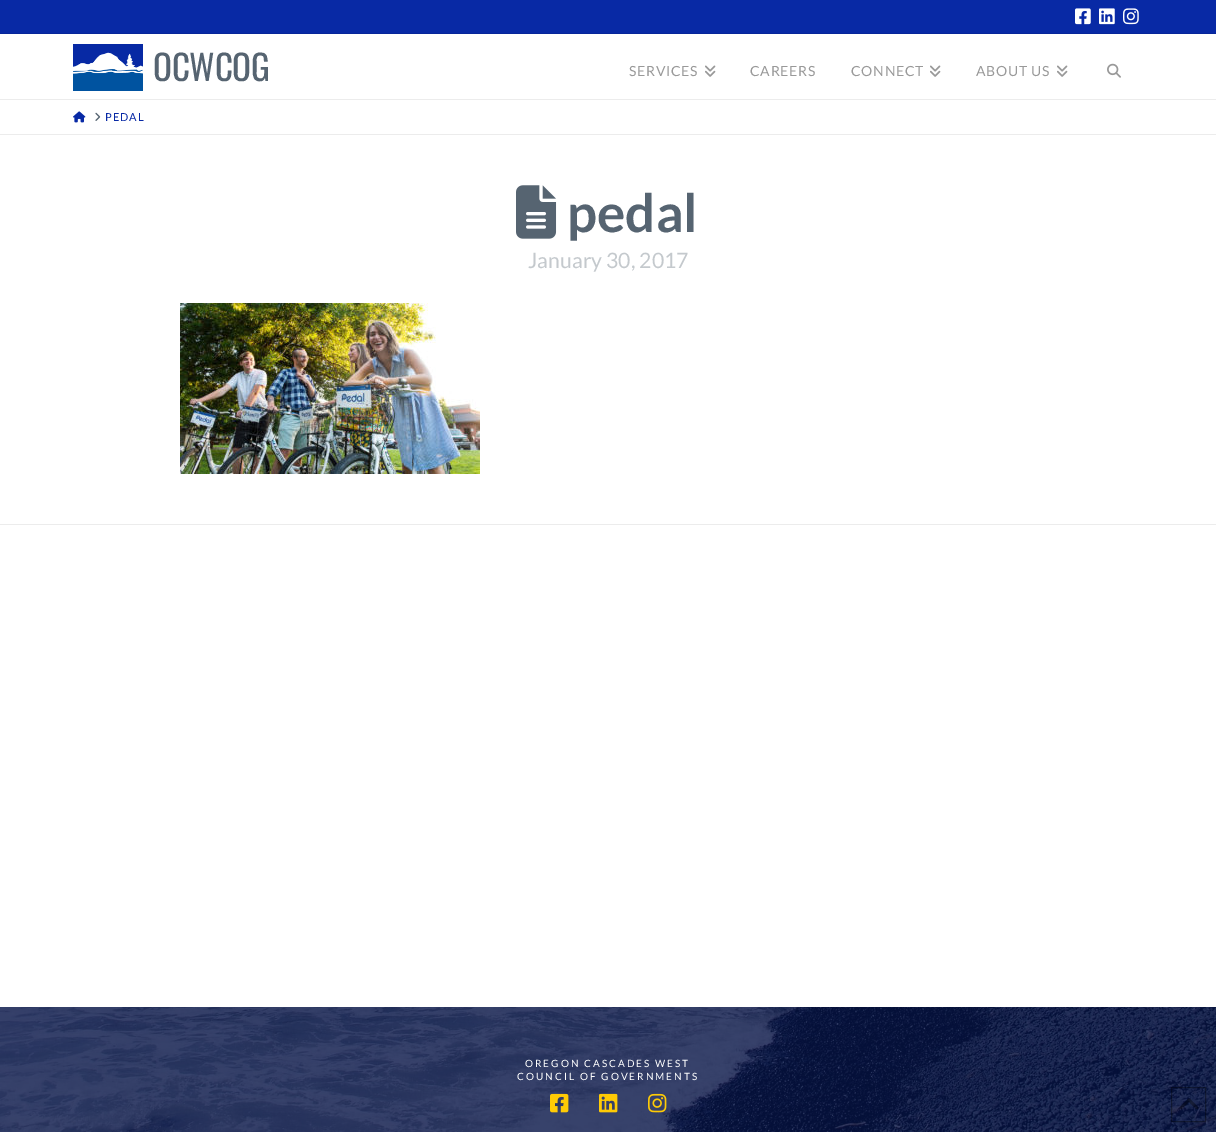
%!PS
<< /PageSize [1216 1132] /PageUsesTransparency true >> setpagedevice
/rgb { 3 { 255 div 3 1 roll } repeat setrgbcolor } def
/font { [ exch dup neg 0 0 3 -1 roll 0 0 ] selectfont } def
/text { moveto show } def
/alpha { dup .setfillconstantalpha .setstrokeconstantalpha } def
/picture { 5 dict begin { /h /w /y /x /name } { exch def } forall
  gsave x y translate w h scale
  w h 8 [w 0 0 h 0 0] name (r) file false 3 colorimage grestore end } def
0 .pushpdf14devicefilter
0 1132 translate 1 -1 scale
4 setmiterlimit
255 255 255 rgb
0 0 1216 1132 rectfill
8 41 165 rgb
0 0 1216 33 rectfill
7 38 153 rgb
0 33 1216 1 rectfill
(img_01.rgb) 1075 8 16 17 picture
(img_02.rgb) 1099 8 16 17 picture
(img_03.rgb) 1123 8 16 17 picture
236 236 236 rgb
0 99 1216 1 rectfill
(img_04.rgb) 73 44 70 47 picture
(img_05.rgb) 705 65 11 12 picture
(img_05.rgb) 930 65 11 12 picture
(img_05.rgb) 1057 65 11 12 picture
(img_06.rgb) 1107 63 14 15 picture
0 134 1216 1 rectfill
(img_07.rgb) 73 111 13 12 picture
(img_08.rgb) 95 112 6 9 picture
0 524 1216 1 rectfill
(img_09.rgb) 516 185 41 54 picture
(img_10.rgb) 180 303 300 171 picture
(img_11.rgb) 0 1007 1216 125 picture
(img_12.rgb) 550 1093 19 20 picture
(img_13.rgb) 599 1093 19 20 picture
(img_14.rgb) 648 1093 19 20 picture
0.38 alpha
0 0 0 rgb
1171.5 1087.5 34 34 rectstroke
1 alpha
(img_15.rgb) 1179 1098 20 12 picture
/Oswald-Regular 35 font
86 100 113 rgb
153 81 moveto -0.25 0 (OCWCOG) ashow
/Lato-Regular 14 font
153 153 153 rgb
629 76 moveto 0.75 0 (SERVICES) ashow
750 76 moveto 0.75 0 (CAREERS) ashow
851 76 moveto 0.75 0 (CONNECT) ashow
976 76 moveto 0.75 0 (ABOUT US) ashow
/Lato-Regular 11 font
8 41 165 rgb
105 121 moveto 1 0 (PEDAL) ashow
/Lato-Bold 53 font
86 100 113 rgb
(pedal) 567 232 text
/Lato-Regular 21.25 font
196 201 205 rgb
(January 30, 2017) 528 268 text
/Lato-Regular 10 font
255 255 255 rgb
525 1067 moveto 2 0 (OREGON CASCADES WEST) ashow
517 1080 moveto 2 0 (COUNCIL OF GOVERNMENTS) ashow
.poppdf14devicefilter showpage
